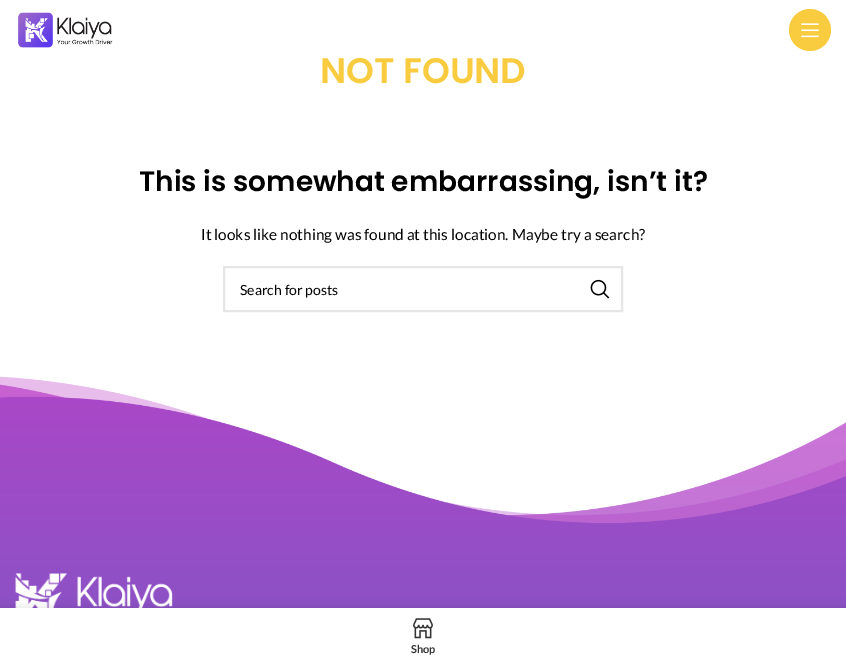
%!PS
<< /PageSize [846 663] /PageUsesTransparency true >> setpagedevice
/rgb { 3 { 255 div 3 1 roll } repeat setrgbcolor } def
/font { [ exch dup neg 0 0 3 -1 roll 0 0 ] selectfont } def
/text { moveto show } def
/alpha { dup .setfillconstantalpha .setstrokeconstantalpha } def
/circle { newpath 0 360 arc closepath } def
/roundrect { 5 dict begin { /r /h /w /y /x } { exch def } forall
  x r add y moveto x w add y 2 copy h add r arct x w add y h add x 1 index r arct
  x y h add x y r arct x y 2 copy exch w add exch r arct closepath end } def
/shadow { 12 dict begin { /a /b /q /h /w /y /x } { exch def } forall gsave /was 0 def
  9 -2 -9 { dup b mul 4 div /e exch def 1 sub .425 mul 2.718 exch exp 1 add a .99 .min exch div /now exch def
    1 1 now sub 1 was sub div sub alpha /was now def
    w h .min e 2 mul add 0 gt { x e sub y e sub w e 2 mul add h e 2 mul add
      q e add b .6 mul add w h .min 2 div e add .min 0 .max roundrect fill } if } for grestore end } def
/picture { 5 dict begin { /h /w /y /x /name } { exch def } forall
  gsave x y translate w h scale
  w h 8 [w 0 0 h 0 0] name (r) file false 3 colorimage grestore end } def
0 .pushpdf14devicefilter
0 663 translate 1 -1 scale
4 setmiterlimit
255 255 255 rgb
0 0 846 663 rectfill
(img_01.rgb) 18 12 95 36 picture
249 203 63 rgb
810 30 21 circle fill
(img_02.rgb) 801 23 18 15 picture
230 230 230 rgb
2 setlinewidth
224 267 398 44 rectstroke
(img_03.rgb) 590 279 20 20 picture
(img_04.rgb) 0 376 846 232 picture
(img_05.rgb) 15 573 158 35 picture
0 0 0 rgb
0 608 846 55 0 4.5 0.12 shadow
255 255 255 rgb
0 608 846 55 rectfill
(img_06.rgb) 413 618 20 21 picture
/Poppins-SemiBold 35.5 font
249 203 63 rgb
(NOT FOUND) 320 83 text
/Poppins-SemiBold 28 font
0 0 0 rgb
(This is somewhat embarrassing, isn’t it?) 139 191 text
/Lato-Regular 15.4 font
(It looks like nothing was found at this location. Maybe try a search?) 201 240 text
/Lato-Regular 14 font
(Search for posts) 240 295 text
/Lato-Bold 11 font
51 51 51 rgb
(Shop) 411 653 text
.poppdf14devicefilter showpage
